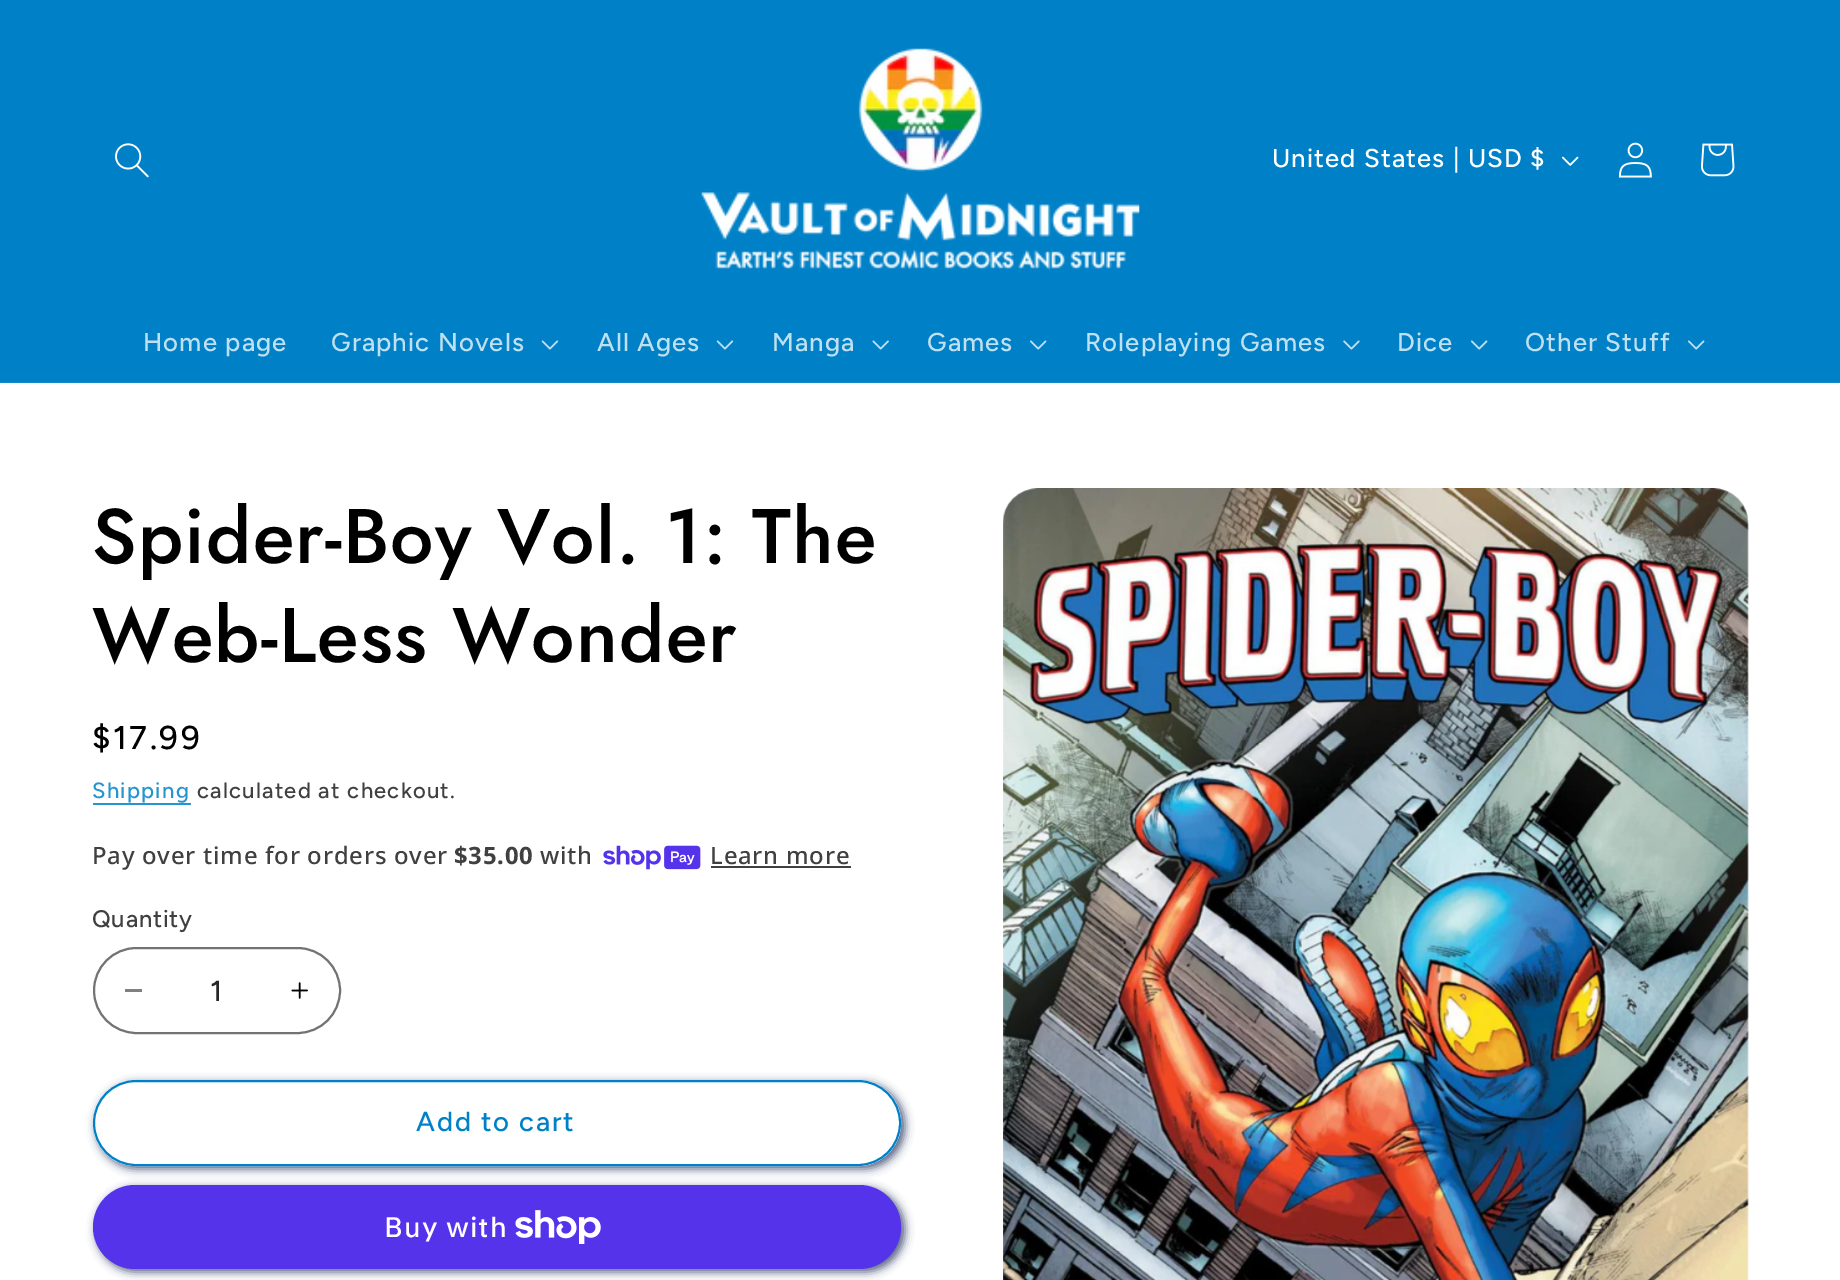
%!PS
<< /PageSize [1840 1280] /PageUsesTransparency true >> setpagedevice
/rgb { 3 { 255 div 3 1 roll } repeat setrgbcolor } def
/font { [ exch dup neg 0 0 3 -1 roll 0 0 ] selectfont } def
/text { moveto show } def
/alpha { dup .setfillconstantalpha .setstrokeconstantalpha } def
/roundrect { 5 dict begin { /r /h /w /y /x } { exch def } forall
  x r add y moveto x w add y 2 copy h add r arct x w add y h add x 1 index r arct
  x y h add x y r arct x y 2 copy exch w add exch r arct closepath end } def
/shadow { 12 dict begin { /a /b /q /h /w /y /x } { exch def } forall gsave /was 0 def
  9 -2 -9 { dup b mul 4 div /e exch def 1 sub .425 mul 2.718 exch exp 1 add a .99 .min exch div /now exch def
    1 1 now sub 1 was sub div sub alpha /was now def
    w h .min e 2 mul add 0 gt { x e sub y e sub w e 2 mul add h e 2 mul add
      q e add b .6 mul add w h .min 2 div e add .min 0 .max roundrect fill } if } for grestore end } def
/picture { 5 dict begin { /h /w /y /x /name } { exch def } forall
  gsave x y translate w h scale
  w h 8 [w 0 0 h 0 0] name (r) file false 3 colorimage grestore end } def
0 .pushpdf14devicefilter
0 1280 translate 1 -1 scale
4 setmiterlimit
255 255 255 rgb
0 0 1840 1280 rectfill
0 129 199 rgb
0 0 1840 382 rectfill
20 139 203 rgb
0 382 1840 1 rectfill
(img_01.rgb) 115 143 34 35 picture
(img_02.rgb) 701 48 439 222 picture
(img_03.rgb) 1562 156 17 10 picture
(img_04.rgb) 1618 142 34 36 picture
(img_05.rgb) 1701 143 34 34 picture
(img_06.rgb) 541 340 18 10 picture
(img_06.rgb) 716 340 18 10 picture
(img_07.rgb) 872 340 17 10 picture
(img_08.rgb) 1030 340 17 10 picture
(img_09.rgb) 1343 340 17 10 picture
(img_08.rgb) 1471 340 17 10 picture
(img_08.rgb) 1688 340 17 10 picture
38 148 207 rgb
93 803 98 2 rectfill
(img_10.rgb) 603 845 98 25 picture
64 64 64 rgb
711 866 140 2 rectfill
128 128 128 rgb
125 989 17 3 rectfill
(img_11.rgb) 291 982 17 17 picture
115 115 115 rgb
2 setlinewidth
94 948 246 85 42.5 roundrect stroke
14 27 77 rgb
96 1083 809 86 43 4.5 0.7 shadow
255 255 255 rgb
93 1080 808 86 43 roundrect fill
94 1081 806 84 42 roundrect stroke
0 129 199 rgb
94 1081 806 84 42 roundrect stroke
14 27 77 rgb
96 1188 809 84 42 4.5 0.7 shadow
84 51 235 rgb
93 1185 808 84 42 roundrect fill
(img_12.rgb) 515 1210 86 34 picture
(img_13.rgb) 1003 488 746 792 picture
/Figtree-Medium 25.75 font
255 255 255 rgb
1272 167 moveto 1.1 0 (United States | USD $) ashow
191 224 241 rgb
143 351 moveto 1.1 0 (Home page) ashow
331 351 moveto 1.1 0 (Graphic Novels) ashow
597 351 moveto 1.1 0 (All Ages) ashow
772 351 moveto 1.1 0 (Manga) ashow
927 351 moveto 1.1 0 (Games) ashow
1085 351 moveto 1.1 0 (Roleplaying Games) ashow
1397 351 moveto 1.1 0 (Dice) ashow
1525 351 moveto 1.1 0 (Other Stuff) ashow
/Jost-Medium 77 font
0 0 0 rgb
92 563 moveto 1.2 0 (Spider-Boy Vol. 1: The) ashow
92 662 moveto 1.2 0 (Web-Less Wonder) ashow
/Figtree-Medium 33 font
92 749 moveto 2.5 0 ($17.99) ashow
/Figtree-Medium 22 font
38 148 207 rgb
92 798 moveto 1.25 0 (Shipping) ashow
64 64 64 rgb
197 798 moveto 1.25 0 (calculated at checkout.) ashow
/NotoSans-Medium 23.9 font
92 864 moveto 0.75 0 (Pay over time for orders over) ashow
/NotoSans-Bold 23.9 font
454 864 moveto 0.75 0 ($35.00) ashow
/NotoSans-Medium 23.9 font
540 864 moveto 0.75 0 (with) ashow
710 864 moveto 0.75 0 (Learn more) ashow
/Figtree-Medium 23.9 font
92 927 moveto 0.75 0 (Quantity) ashow
/Figtree-Medium 29 font
38 38 38 rgb
(1) 210 1001 text
/Figtree-Medium 27.5 font
0 129 199 rgb
416 1131 moveto 1.75 0 (Add to cart) ashow
/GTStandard-Medium 28 font
255 255 255 rgb
384 1237 moveto 1.1 0 (Buy with) ashow
.poppdf14devicefilter showpage
